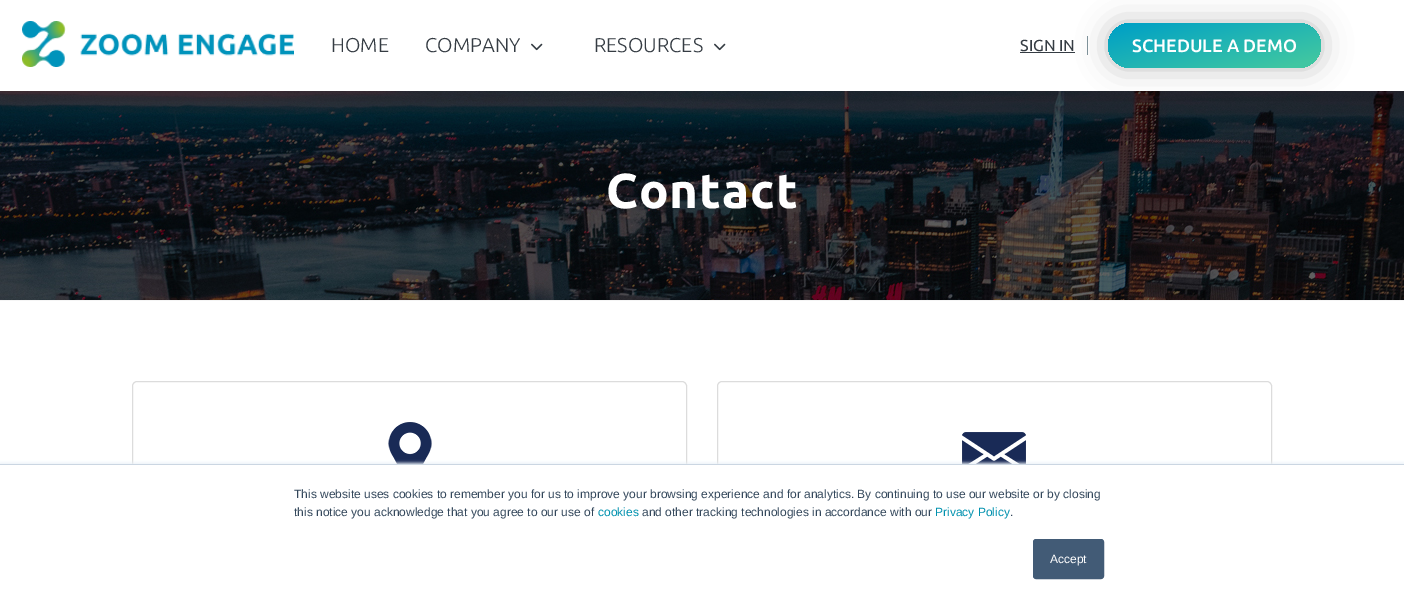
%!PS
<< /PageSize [1404 605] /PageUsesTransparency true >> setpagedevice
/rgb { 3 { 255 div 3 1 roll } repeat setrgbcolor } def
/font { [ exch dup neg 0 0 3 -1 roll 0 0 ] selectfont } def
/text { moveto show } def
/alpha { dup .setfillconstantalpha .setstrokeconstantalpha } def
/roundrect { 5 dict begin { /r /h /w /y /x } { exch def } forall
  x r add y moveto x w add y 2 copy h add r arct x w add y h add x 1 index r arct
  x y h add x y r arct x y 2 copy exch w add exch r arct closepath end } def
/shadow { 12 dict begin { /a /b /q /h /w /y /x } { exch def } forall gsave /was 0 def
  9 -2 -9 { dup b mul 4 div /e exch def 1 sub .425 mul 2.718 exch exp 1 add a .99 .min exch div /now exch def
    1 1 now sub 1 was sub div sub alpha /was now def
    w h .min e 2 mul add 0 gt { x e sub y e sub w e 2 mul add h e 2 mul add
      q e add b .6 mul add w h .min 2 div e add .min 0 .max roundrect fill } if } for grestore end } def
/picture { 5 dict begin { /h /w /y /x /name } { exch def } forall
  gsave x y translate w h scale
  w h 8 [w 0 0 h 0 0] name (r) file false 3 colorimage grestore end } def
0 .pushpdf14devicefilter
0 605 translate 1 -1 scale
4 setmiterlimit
255 255 255 rgb
0 0 1404 605 rectfill
(img_03.rgb) 0 91 1404 209 picture
0 0 0 rgb
0 4 1404 91 0 25 0.25 shadow
255 255 255 rgb
0 0 1404 91 rectfill
(img_01.rgb) 22 21 272 46 picture
(img_02.rgb) 531 43 12 8 picture
(img_02.rgb) 714 43 12 8 picture
128 147 155 rgb
1087 36 1 19 rectfill
53 60 67 rgb
1020 52 55 1 rectfill
41 41 41 rgb
1108 23 213 45 22.5 15 0.3 shadow
gsave 1108 23 213 45 22.5 roundrect clip newpath
<< /ShadingType 2 /ColorSpace /DeviceRGB /Coords [1202 -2.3 1227 93] /Extend [true true] /Function << /FunctionType 3 /Domain [0 1] /Functions [<< /FunctionType 2 /Domain [0 1] /C0 [0 0.631 0.776] /C1 [0 0.631 0.776] /N 1 >> << /FunctionType 2 /Domain [0 1] /C0 [0 0.631 0.776] /C1 [0.247 0.776 0.635] /N 1 >> << /FunctionType 2 /Domain [0 1] /C0 [0.247 0.776 0.635] /C1 [0.247 0.776 0.635] /N 1 >>] /Bounds [0.05 0.89] /Encode [0 1 0 1 0 1] >> >> shfill grestore
245 245 245 rgb
0 300 1404 1 rectfill
220 220 220 rgb
132.5 381.5 554 220 4.5 roundrect stroke
(img_04.rgb) 388 422 44 42 picture
717.5 381.5 554 220 4.5 roundrect stroke
(img_05.rgb) 962 432 64 32 picture
234 240 246 rgb
0 463 1404 141 0 1.5 1 shadow
255 255 255 rgb
0 465 1404 140 rectfill
203 214 226 rgb
0 464 1404 1 rectfill
66 91 118 rgb
1033.5 539.5 70 39 2.5 roundrect gsave fill grestore
stroke
/Ubuntu-Light 20 font
53 60 67 rgb
(HOME) 331 52 text
(COMPANY) 425 52 text
(RESOURCES) 594 52 text
/Ubuntu-Regular 16 font
(SIGN IN) 1020 51 text
/Ubuntu-Medium 18 font
255 255 255 rgb
(SCHEDULE A DEMO) 1132 52 text
/Ubuntu-Bold 49 font
606 208 moveto 1 0 (Contact) ashow
/LiberationSans-Regular 12 font
51 71 91 rgb
(This website uses cookies to remember you for us to improve your browsing experience and for analytics. By continuing to use our website or by closing) 294 498 text
(this notice you acknowledge that you agree to our use of) 294 516 text
0 145 174 rgb
(cookies) 598 516 text
51 71 91 rgb
(and other tracking technologies in accordance with our) 642 516 text
0 145 174 rgb
(Privacy Policy) 935 516 text
51 71 91 rgb
(.) 1010 516 text
255 255 255 rgb
(Accept) 1050 563 text
.poppdf14devicefilter showpage
